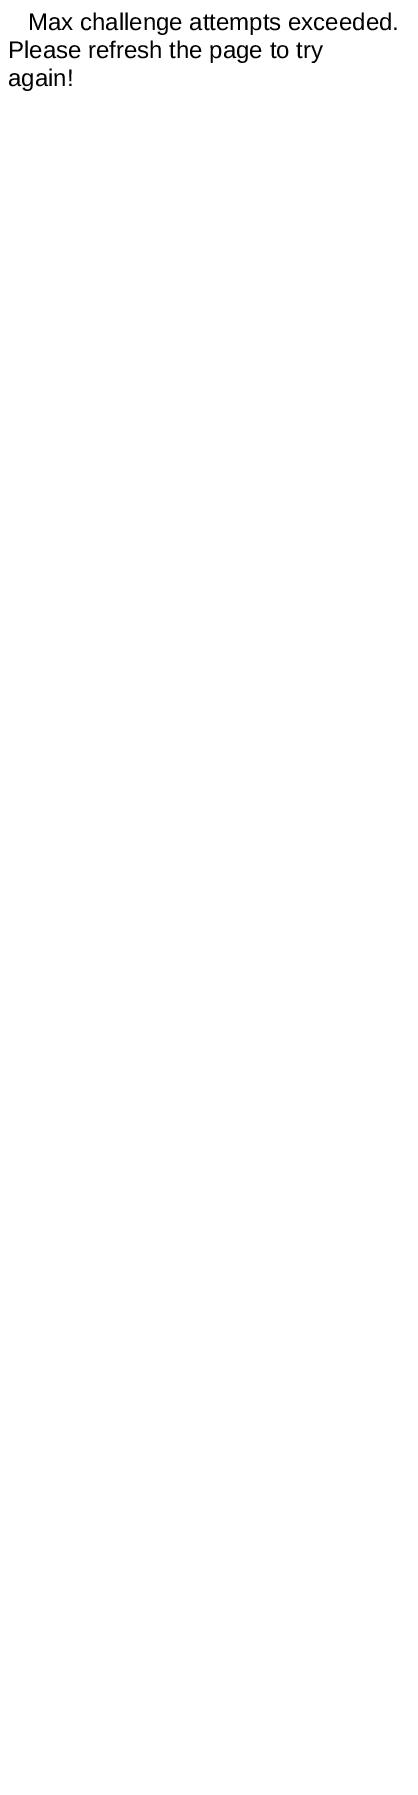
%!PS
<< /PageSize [418 1795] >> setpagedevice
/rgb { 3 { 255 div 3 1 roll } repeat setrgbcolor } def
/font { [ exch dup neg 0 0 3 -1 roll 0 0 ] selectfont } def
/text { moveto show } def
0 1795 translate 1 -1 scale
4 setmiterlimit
255 255 255 rgb
0 0 418 1795 rectfill
/LiberationSans-Regular 24 font
0 0 0 rgb
(Max challenge attempts exceeded.) 28 30 text
(Please refresh the page to try) 8 58 text
(again!) 8 86 text
showpage
